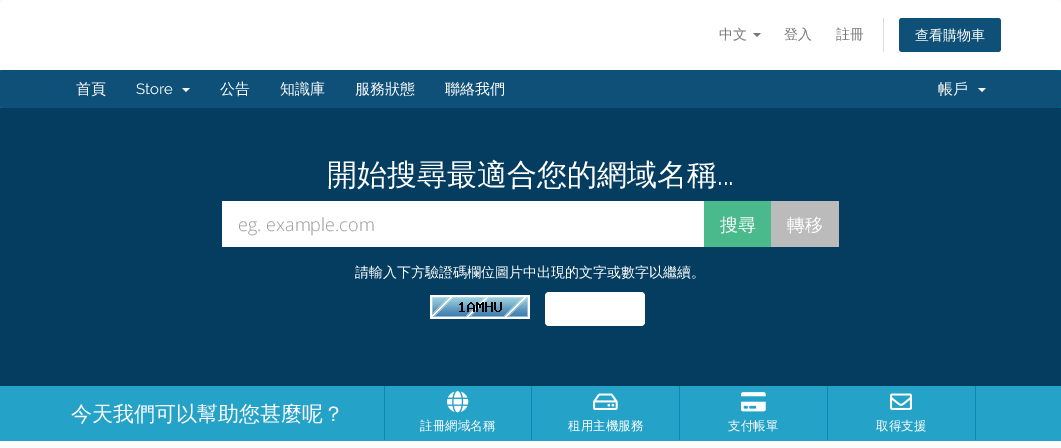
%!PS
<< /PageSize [1061 448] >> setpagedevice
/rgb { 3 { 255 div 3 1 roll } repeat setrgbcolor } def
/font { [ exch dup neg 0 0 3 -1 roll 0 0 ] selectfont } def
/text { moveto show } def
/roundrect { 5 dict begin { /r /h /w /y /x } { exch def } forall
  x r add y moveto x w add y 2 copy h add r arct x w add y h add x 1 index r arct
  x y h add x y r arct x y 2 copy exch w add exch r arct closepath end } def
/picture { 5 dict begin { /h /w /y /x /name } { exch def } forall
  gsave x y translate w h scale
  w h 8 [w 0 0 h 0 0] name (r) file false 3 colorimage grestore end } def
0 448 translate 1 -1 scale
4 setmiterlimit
248 248 248 rgb
0 0 1061 448 rectfill
255 255 255 rgb
5 0 moveto 1051 0 rlineto 3 0 5 2 5 5 rcurveto 0 65 rlineto -1061 0 rlineto 0 -65 rlineto 0 -3 2 -5 5 -5 rcurveto closepath fill
119 119 119 rgb
753 33 moveto 8 0 rlineto -4 4 rlineto closepath fill
221 221 221 rgb
883 18 1 34 rectfill
14 80 119 rgb
899 18 102 34 3 roundrect fill
0 102 135 rgb
0 70 1061 38 rectfill
14 80 119 rgb
0 70 1061 38 4 roundrect fill
255 255 255 rgb
182 88 moveto 8 0 rlineto -4 4 rlineto closepath fill
978 88 moveto 8 0 rlineto -4 4 rlineto closepath fill
4 61 95 rgb
0 108 1061 278 rectfill
255 255 255 rgb
222 201 482 46 rectfill
74 185 139 rgb
704 201 67 46 rectfill
187 187 187 rgb
771 201 68 46 rectfill
(img_01.rgb) 430 295 100 24 picture
255 255 255 rgb
545 292 100 34 4 roundrect fill
37 162 199 rgb
0 386 1061 55 rectfill
14 136 176 rgb
531 386 1 54 rectfill
384 386 1 54 rectfill
(img_02.rgb) 447 391 22 22 picture
679 386 1 54 rectfill
(img_03.rgb) 593 393 25 17 picture
827 386 1 54 rectfill
(img_04.rgb) 741 392 25 20 picture
975 386 1 54 rectfill
(img_05.rgb) 890 393 22 17 picture
255 255 255 rgb
0 441 1061 7 rectfill
/WenQuanYiZenHei-Medium 14 font
119 119 119 rgb
(中文) 719 39 text
(登入) 784 39 text
(註冊) 836 39 text
255 255 255 rgb
(查看購物車) 915 40 text
/WenQuanYiZenHei-Medium 15 font
(首頁) 76 94 text
/Raleway-Regular 15 font
(Store) 136 94 text
/WenQuanYiZenHei-Medium 15 font
(公告) 220 94 text
(知識庫) 280 94 text
(服務狀態) 355 94 text
(聯絡我們) 445 94 text
(帳戶) 938 94 text
/WenQuanYiZenHei-Medium 30 font
(開始搜尋最適合您的網域名稱) 327 185 text
/Raleway-Regular 30 font
(...) 717 185 text
/OpenSans-Light 18 font
153 153 153 rgb
(eg. example.com) 238 231 text
/WenQuanYiZenHei-Medium 18 font
255 255 255 rgb
(搜尋) 720 231 text
(轉移) 787 231 text
/WenQuanYiZenHei-Medium 14 font
(請輸入下方驗證碼欄位圖片中出現的文字或數字以繼續。) 355 277 text
/WenQuanYiZenHei-Medium 21 font
(今天我們可以幫助您甚麼呢？) 71 421 text
/WenQuanYiZenHei-Medium 12.5 font
(註冊網域名稱) 420 430 text
(租用主機服務) 568 430 text
(支付帳單) 728 430 text
(取得支援) 876 430 text
showpage
